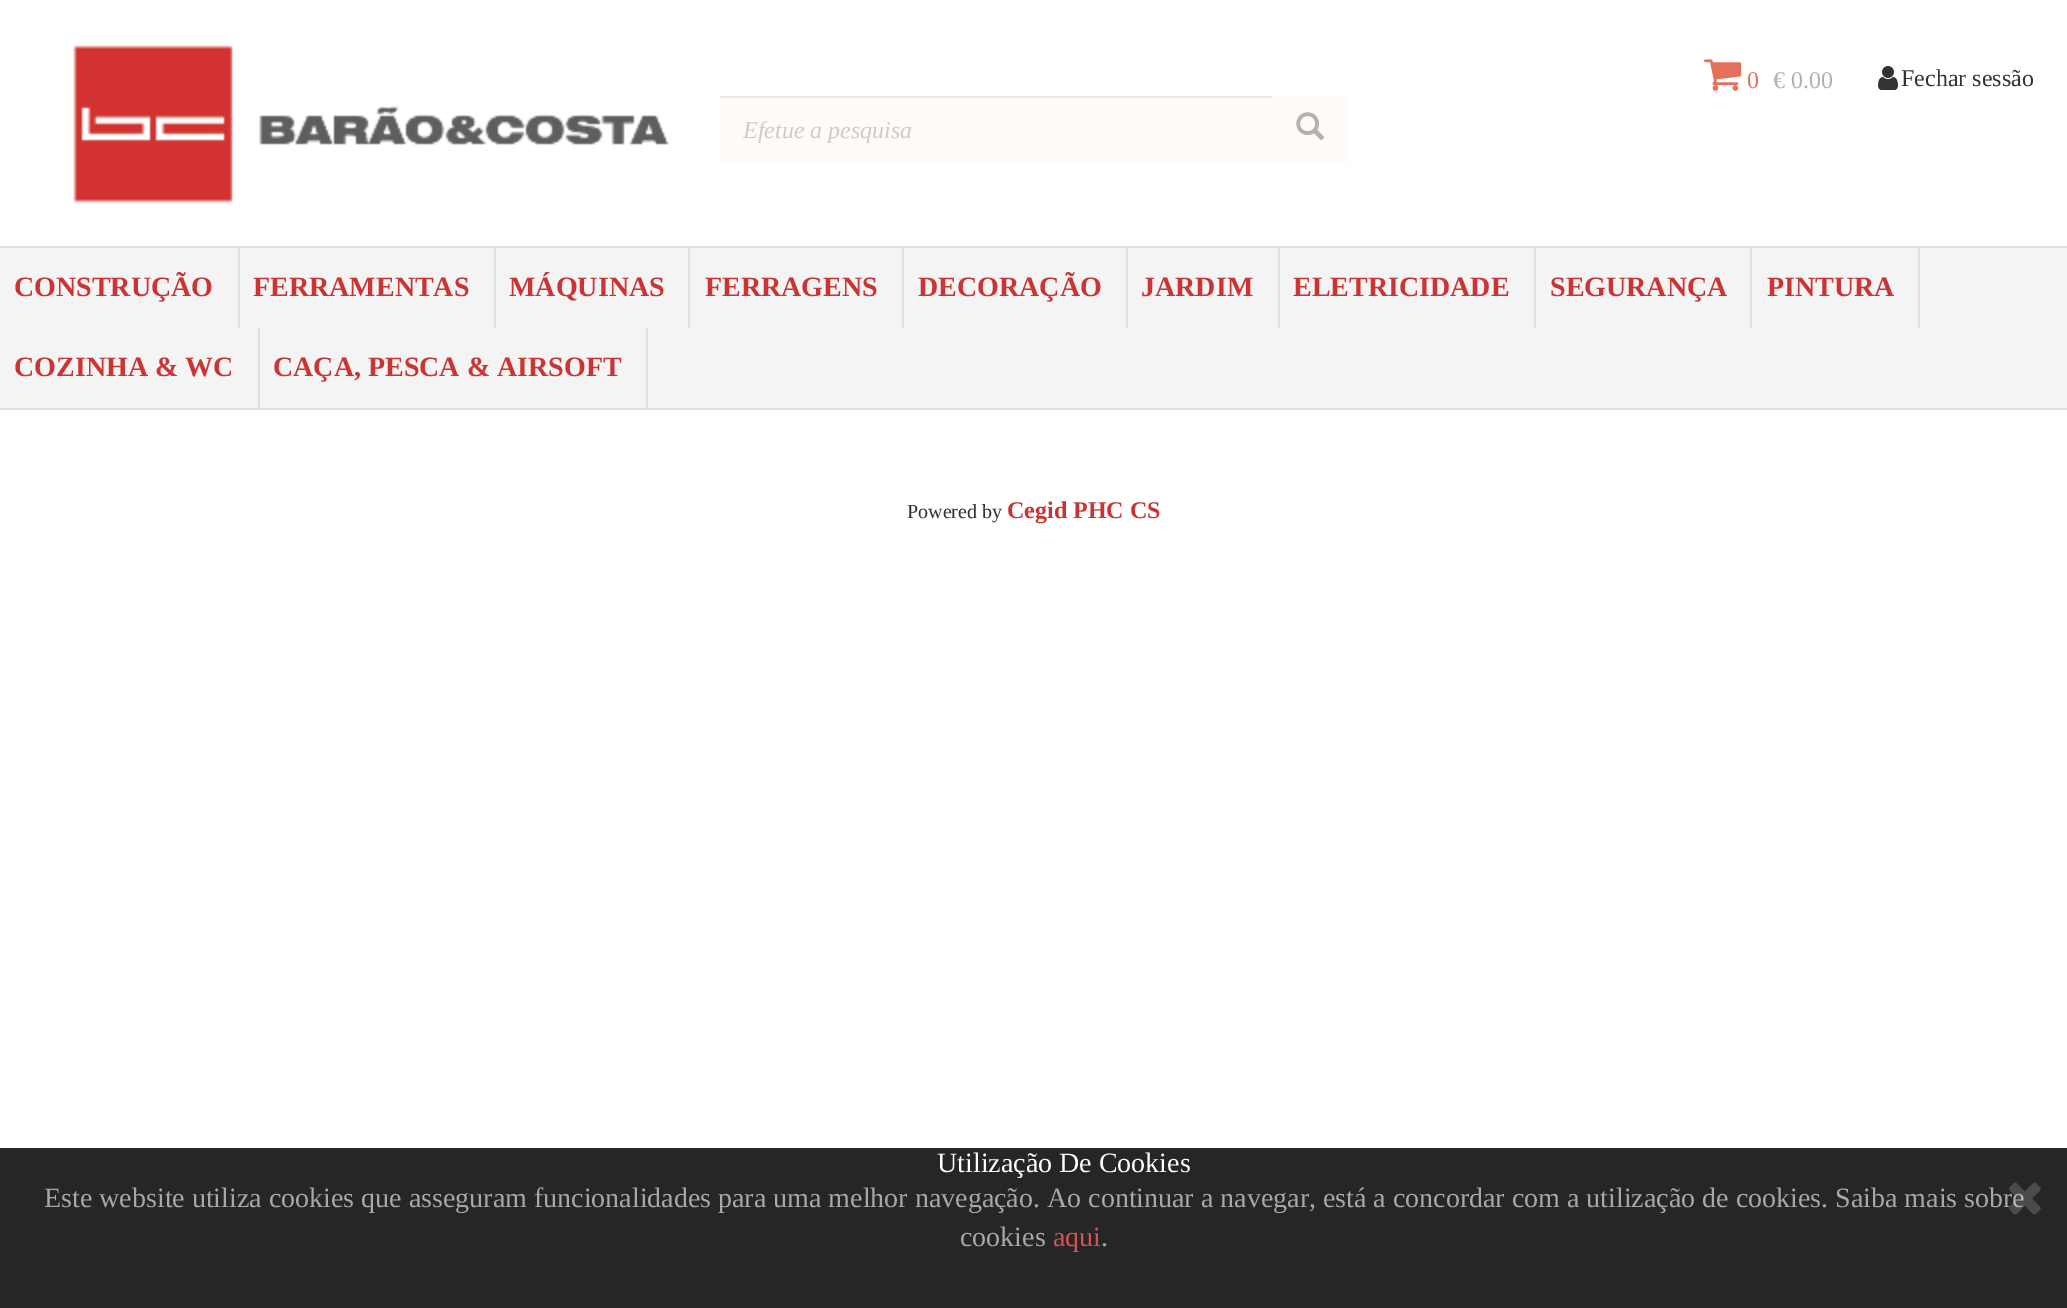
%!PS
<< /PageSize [2067 1308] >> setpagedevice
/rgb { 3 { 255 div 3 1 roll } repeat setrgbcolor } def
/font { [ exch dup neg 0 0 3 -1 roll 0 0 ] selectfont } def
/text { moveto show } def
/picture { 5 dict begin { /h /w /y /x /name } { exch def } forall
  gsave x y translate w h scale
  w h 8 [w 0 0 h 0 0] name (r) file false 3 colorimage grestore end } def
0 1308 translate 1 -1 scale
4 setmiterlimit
255 255 255 rgb
0 0 2067 1308 rectfill
(img_01.rgb) 73 45 596 158 picture
(img_02.rgb) 1704 59 38 32 picture
(img_03.rgb) 1878 66 20 24 picture
255 251 249 rgb
720 98 552 66 rectfill
236 232 230 rgb
720 96 552 2 rectfill
255 251 249 rgb
1272 96 76 68 rectfill
(img_04.rgb) 1296 112 29 29 picture
244 244 244 rgb
0 248 2067 160 rectfill
224 224 224 rgb
0 246 2067 2 rectfill
0 408 2067 2 rectfill
238 248 2 80 rectfill
494 248 2 80 rectfill
688 248 2 80 rectfill
902 248 2 80 rectfill
1126 248 2 80 rectfill
1278 248 2 80 rectfill
1534 248 2 80 rectfill
1750 248 2 80 rectfill
1918 248 2 80 rectfill
258 328 2 80 rectfill
646 328 2 80 rectfill
38 38 38 rgb
0 1148 2067 160 rectfill
/LiberationSerif-Regular 24 font
231 112 90 rgb
(0) 1747 88 text
182 177 175 rgb
(€ 0.00) 1773 88 text
51 51 51 rgb
(Fechar sessão) 1901 86 text
/LiberationSerif-Italic 24 font
204 204 204 rgb
(Efetue a pesquisa) 743 138 text
/LiberationSerif-Bold 28 font
204 51 51 rgb
(CONSTRUÇÃO) 14 296 text
(FERRAMENTAS) 253 296 text
(MÁQUINAS) 509 296 text
(FERRAGENS) 705 296 text
(DECORAÇÃO) 918 296 text
(JARDIM) 1141 296 text
(ELETRICIDADE) 1293 296 text
(SEGURANÇA) 1550 296 text
(PINTURA) 1767 296 text
(COZINHA & WC) 14 376 text
(CAÇA, PESCA & AIRSOFT) 273 376 text
/LiberationSerif-Regular 20 font
51 51 51 rgb
(Powered by) 907 518 text
/LiberationSerif-Bold 24 font
204 51 51 rgb
(Cegid PHC CS) 1007 518 text
/LiberationSerif-Regular 28 font
255 255 255 rgb
(Utilização De Cookies) 937 1172 text
168 168 168 rgb
(Este website utiliza cookies que asseguram funcionalidades para uma melhor navegação. Ao continuar a navegar, está a concordar com a utilização de cookies. Saiba mais sobre) 44 1207 text
(cookies) 960 1246 text
212 82 82 rgb
(aqui) 1053 1246 text
168 168 168 rgb
(.) 1101 1246 text
(img_05.rgb) 2009 1182 32 33 picture
showpage
